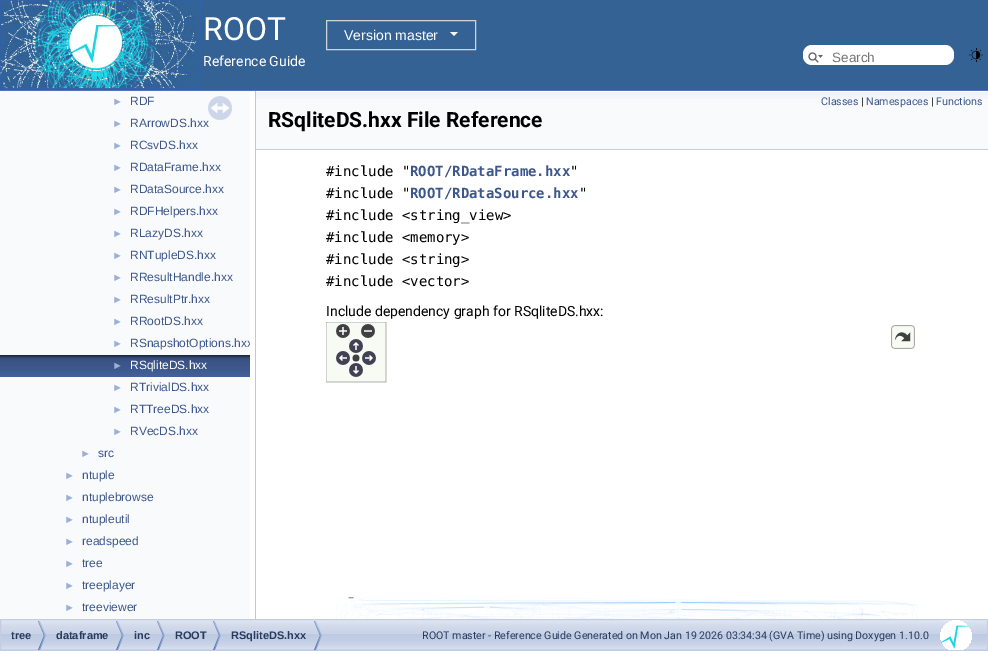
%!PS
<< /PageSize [988 651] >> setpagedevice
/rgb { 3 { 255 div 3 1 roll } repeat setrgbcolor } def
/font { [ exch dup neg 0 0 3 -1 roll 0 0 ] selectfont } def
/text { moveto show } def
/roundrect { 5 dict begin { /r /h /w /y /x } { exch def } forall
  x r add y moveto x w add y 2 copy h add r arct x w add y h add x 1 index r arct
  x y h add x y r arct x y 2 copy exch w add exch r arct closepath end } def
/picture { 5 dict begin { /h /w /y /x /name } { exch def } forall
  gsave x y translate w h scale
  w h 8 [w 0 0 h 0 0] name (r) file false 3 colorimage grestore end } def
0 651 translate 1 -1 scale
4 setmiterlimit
255 255 255 rgb
0 0 988 651 rectfill
83 115 180 rgb
0 90 988 1 rectfill
52 98 149 rgb
203 0 785 90 rectfill
(img_01.rgb) 0 0 203 90 picture
211 211 211 rgb
326.5 20.5 149 29 rectstroke
255 255 255 rgb
450 32 moveto 8 0 rlineto -4 4 rlineto closepath fill
803 45 151 20 9 roundrect fill
(img_02.rgb) 808 52 15 11 picture
(img_03.rgb) 969 48 14 14 picture
249 250 252 rgb
0 91 250 528 rectfill
(img_04.rgb) 0 355 250 22 picture
(img_06.rgb) 255 91 1 528 picture
256 99 732 50 rectfill
(img_07.rgb) 256 91 732 8 picture
196 207 229 rgb
256 149 732 1 rectfill
(img_08.rgb) 326 322 592 297 picture
(img_09.rgb) 1 620 986 30 picture
194 205 228 rgb
0.5 619.5 987 31 rectstroke
(img_10.rgb) 38 621 8 29 picture
(img_10.rgb) 116 621 8 29 picture
(img_10.rgb) 157 621 8 29 picture
(img_10.rgb) 213 621 8 29 picture
(img_10.rgb) 314 621 8 29 picture
(img_11.rgb) 940 620 32 30 picture
/Roboto-Regular 32 font
255 255 255 rgb
(ROOT) 203 40 text
/LiberationSans-Regular 14 font
(Version master) 344 40 text
/Roboto-Regular 14 font
(Reference Guide) 203 66 text
/LiberationSans-Regular 13.5 font
117 117 117 rgb
(Search) 832 62 text
/LiberationSans-Regular 11 font
156 175 212 rgb
(►) 112 105 text
/LiberationSans-Regular 12 font
61 87 140 rgb
(RDF) 130 105 text
/LiberationSans-Regular 11 font
156 175 212 rgb
(►) 112 127 text
/LiberationSans-Regular 12 font
61 87 140 rgb
(RArrowDS.hxx) 130 127 text
/LiberationSans-Regular 11 font
156 175 212 rgb
(►) 112 149 text
/LiberationSans-Regular 12 font
61 87 140 rgb
(RCsvDS.hxx) 130 149 text
/LiberationSans-Regular 11 font
156 175 212 rgb
(►) 112 171 text
/LiberationSans-Regular 12 font
61 87 140 rgb
(RDataFrame.hxx) 130 171 text
/LiberationSans-Regular 11 font
156 175 212 rgb
(►) 112 193 text
/LiberationSans-Regular 12 font
61 87 140 rgb
(RDataSource.hxx) 130 193 text
/LiberationSans-Regular 11 font
156 175 212 rgb
(►) 112 215 text
/LiberationSans-Regular 12 font
61 87 140 rgb
(RDFHelpers.hxx) 130 215 text
/LiberationSans-Regular 11 font
156 175 212 rgb
(►) 112 237 text
/LiberationSans-Regular 12 font
61 87 140 rgb
(RLazyDS.hxx) 130 237 text
/LiberationSans-Regular 11 font
156 175 212 rgb
(►) 112 259 text
/LiberationSans-Regular 12 font
61 87 140 rgb
(RNTupleDS.hxx) 130 259 text
/LiberationSans-Regular 11 font
156 175 212 rgb
(►) 112 281 text
/LiberationSans-Regular 12 font
61 87 140 rgb
(RResultHandle.hxx) 130 281 text
/LiberationSans-Regular 11 font
156 175 212 rgb
(►) 112 303 text
/LiberationSans-Regular 12 font
61 87 140 rgb
(RResultPtr.hxx) 130 303 text
/LiberationSans-Regular 11 font
156 175 212 rgb
(►) 112 325 text
/LiberationSans-Regular 12 font
61 87 140 rgb
(RRootDS.hxx) 130 325 text
/LiberationSans-Regular 11 font
156 175 212 rgb
(►) 112 347 text
gsave
0 91 250 528 rectclip
/LiberationSans-Regular 12 font
61 87 140 rgb
(RSnapshotOptions.hxx) 130 347 text
grestore
(►) 112 369 text
/LiberationSans-Regular 12 font
255 255 255 rgb
(RSqliteDS.hxx) 130 369 text
/LiberationSans-Regular 11 font
156 175 212 rgb
(►) 112 391 text
/LiberationSans-Regular 12 font
61 87 140 rgb
(RTrivialDS.hxx) 130 391 text
/LiberationSans-Regular 11 font
156 175 212 rgb
(►) 112 413 text
/LiberationSans-Regular 12 font
61 87 140 rgb
(RTTreeDS.hxx) 130 413 text
/LiberationSans-Regular 11 font
156 175 212 rgb
(►) 112 435 text
/LiberationSans-Regular 12 font
61 87 140 rgb
(RVecDS.hxx) 130 435 text
/LiberationSans-Regular 11 font
156 175 212 rgb
(►) 80 457 text
/LiberationSans-Regular 12 font
61 87 140 rgb
(src) 98 457 text
/LiberationSans-Regular 11 font
156 175 212 rgb
(►) 64 479 text
/LiberationSans-Regular 12 font
61 87 140 rgb
(ntuple) 82 479 text
/LiberationSans-Regular 11 font
156 175 212 rgb
(►) 64 501 text
/LiberationSans-Regular 12 font
61 87 140 rgb
(ntuplebrowse) 82 501 text
/LiberationSans-Regular 11 font
156 175 212 rgb
(►) 64 523 text
/LiberationSans-Regular 12 font
61 87 140 rgb
(ntupleutil) 82 523 text
/LiberationSans-Regular 11 font
156 175 212 rgb
(►) 64 545 text
/LiberationSans-Regular 12 font
61 87 140 rgb
(readspeed) 82 545 text
/LiberationSans-Regular 11 font
156 175 212 rgb
(►) 64 567 text
/LiberationSans-Regular 12 font
61 87 140 rgb
(tree) 82 567 text
/LiberationSans-Regular 11 font
156 175 212 rgb
(►) 64 589 text
/LiberationSans-Regular 12 font
61 87 140 rgb
(treeplayer) 82 589 text
/LiberationSans-Regular 11 font
156 175 212 rgb
(►) 64 611 text
/LiberationSans-Regular 12 font
61 87 140 rgb
(treeviewer) 82 611 text
(img_05.rgb) 208 96 24 24 picture
/Roboto-Regular 10.65 font
(Classes) 821 105 text
0 0 0 rgb
(|) 861 105 text
61 87 140 rgb
(Namespaces) 866 105 text
0 0 0 rgb
(|) 931 105 text
61 87 140 rgb
(Functions) 936 105 text
/Roboto-Bold 21 font
0 0 0 rgb
(RSqliteDS.hxx File Reference) 268 127 text
/DejaVuSansMono-Regular 14 font
(#include ") 326 176 text
/DejaVuSansMono-Bold 14 font
61 87 140 rgb
(ROOT/RDataFrame.hxx) 410 176 text
/DejaVuSansMono-Regular 14 font
0 0 0 rgb
(") 570 176 text
(#include ") 326 198 text
/DejaVuSansMono-Bold 14 font
61 87 140 rgb
(ROOT/RDataSource.hxx) 410 198 text
/DejaVuSansMono-Regular 14 font
0 0 0 rgb
(") 579 198 text
(#include <string_view>) 326 220 text
(#include <memory>) 326 242 text
(#include <string>) 326 264 text
(#include <vector>) 326 286 text
/Roboto-Regular 14 font
(Include dependency graph for RSqliteDS.hxx:) 326 316 text
/LiberationSans-Bold 11 font
40 58 93 rgb
(tree) 11 639 text
(dataframe) 56 639 text
(inc) 134 639 text
(ROOT) 175 639 text
(RSqliteDS.hxx) 231 639 text
/Roboto-Regular 10.65 font
(ROOT master - Reference Guide Generated on Mon Jan 19 2026 03:34:34 \(GVA Time\) using Doxygen 1.10.0) 422 639 text
showpage
